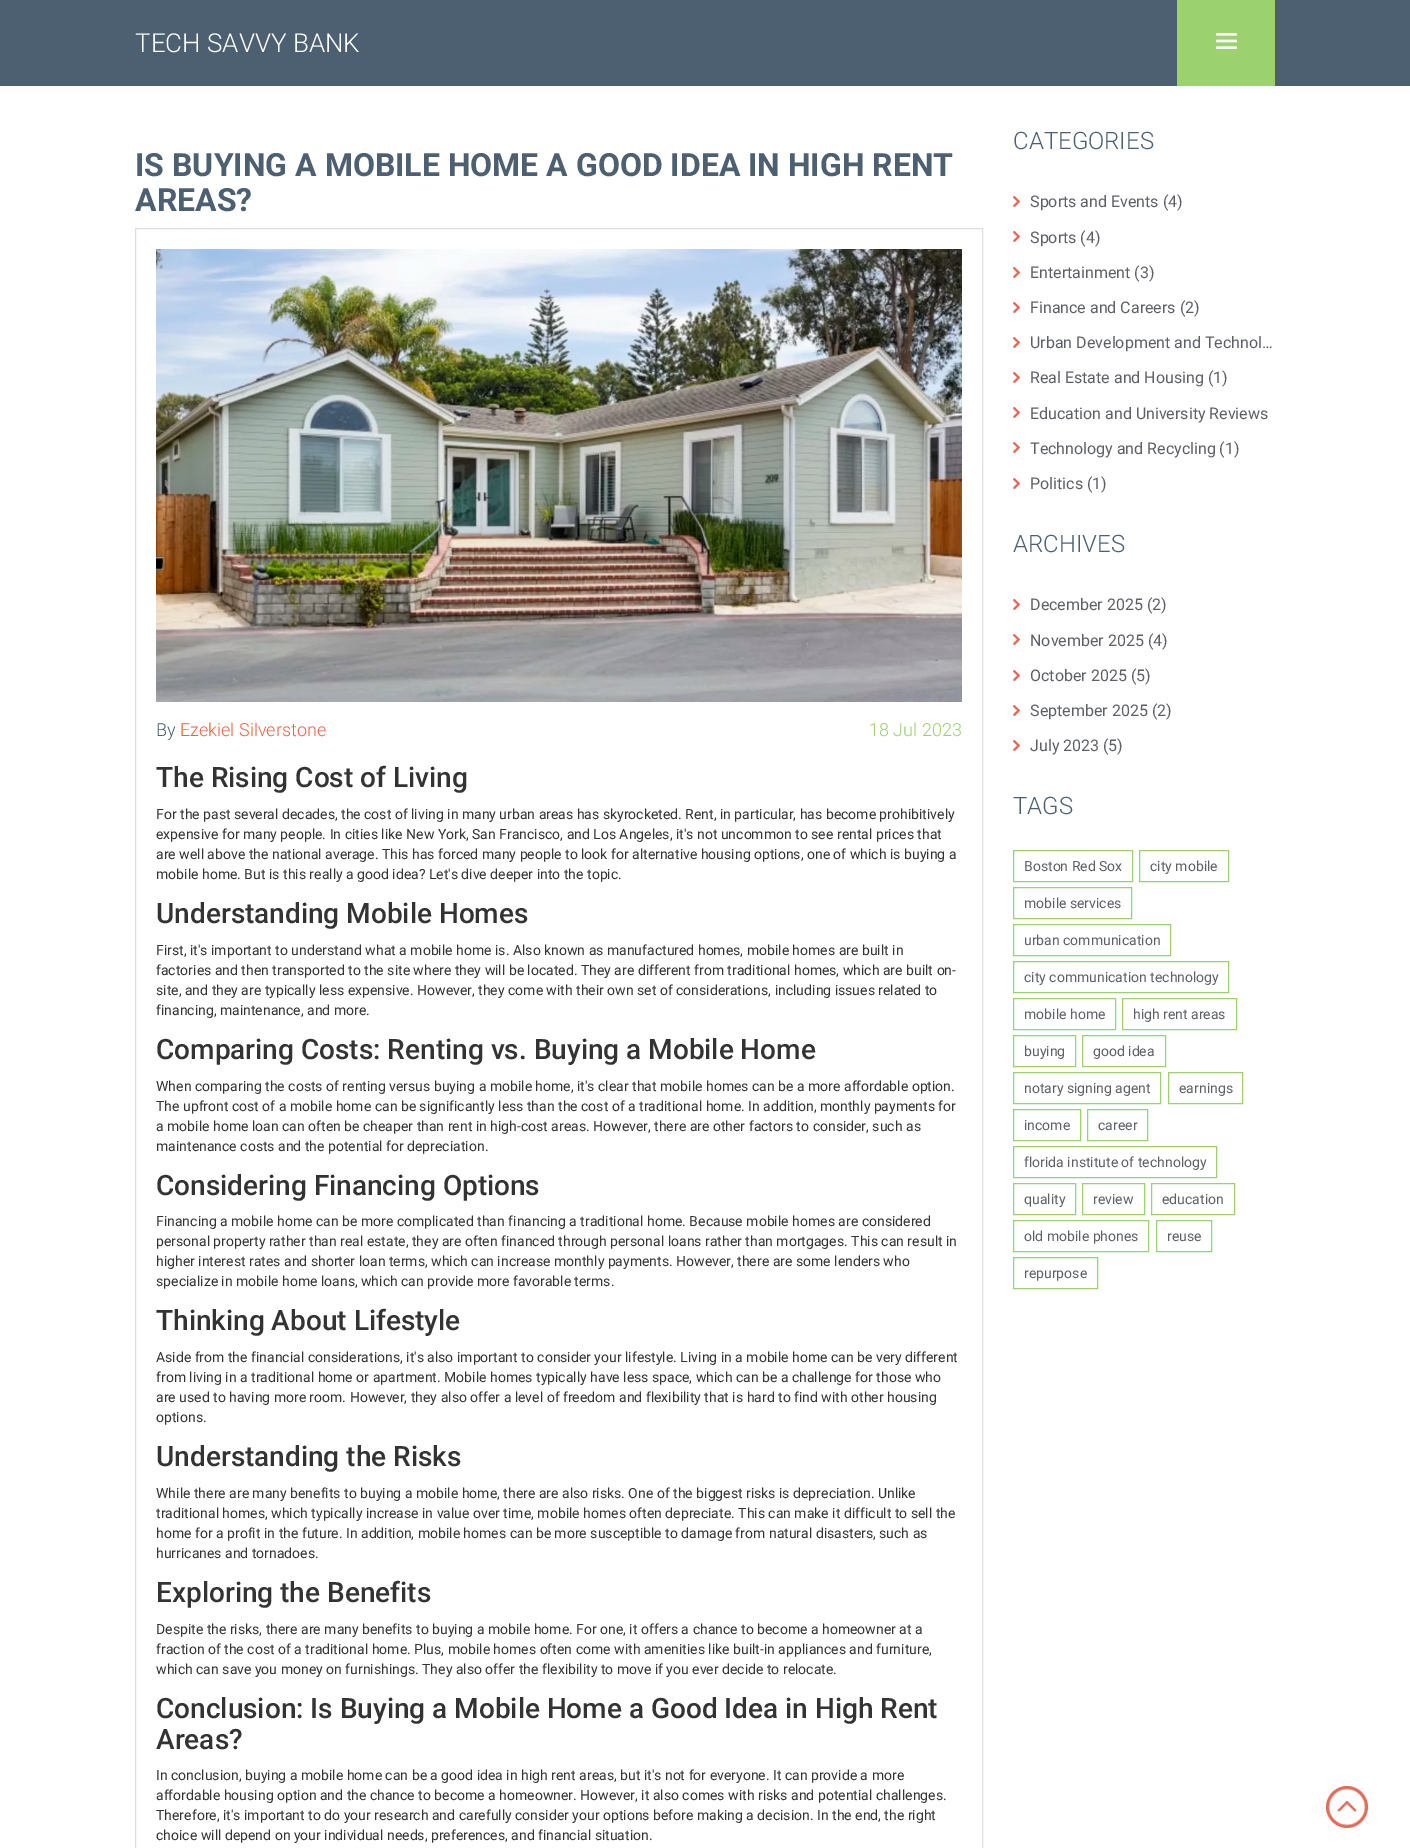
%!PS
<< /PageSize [1410 1848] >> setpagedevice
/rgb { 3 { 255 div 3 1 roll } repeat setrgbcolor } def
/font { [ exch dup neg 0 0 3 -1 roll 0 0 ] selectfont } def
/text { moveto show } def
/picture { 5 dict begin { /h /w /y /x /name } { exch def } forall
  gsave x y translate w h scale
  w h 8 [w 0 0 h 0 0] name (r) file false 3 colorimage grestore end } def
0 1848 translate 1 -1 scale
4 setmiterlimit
255 255 255 rgb
0 0 1410 1848 rectfill
76 96 113 rgb
0 0 1410 86 rectfill
155 209 111 rgb
1177 0 98 86 rectfill
(img_01.rgb) 1216 33 21 16 picture
222 222 222 rgb
135.5 228.5 847 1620 rectstroke
(img_02.rgb) 156 249 806 453 picture
(img_03.rgb) 1013 196 7 11 picture
(img_03.rgb) 1013 231 7 11 picture
(img_03.rgb) 1013 267 7 11 picture
(img_03.rgb) 1013 302 7 11 picture
(img_03.rgb) 1013 337 7 11 picture
(img_03.rgb) 1013 372 7 11 picture
(img_03.rgb) 1013 407 7 11 picture
(img_03.rgb) 1013 442 7 11 picture
(img_03.rgb) 1013 478 7 11 picture
(img_03.rgb) 1013 599 7 11 picture
(img_03.rgb) 1013 634 7 11 picture
(img_03.rgb) 1013 670 7 11 picture
(img_03.rgb) 1013 705 7 11 picture
(img_03.rgb) 1013 740 7 11 picture
155 209 111 rgb
1013.5 850.5 119 31 rectstroke
1139.5 850.5 89 31 rectstroke
1013.5 887.5 118 31 rectstroke
1013.5 924.5 157 31 rectstroke
1013.5 961.5 215 31 rectstroke
1013.5 998.5 102 31 rectstroke
1122.5 998.5 114 31 rectstroke
1013.5 1035.5 62 31 rectstroke
1082.5 1035.5 83 31 rectstroke
1013.5 1072.5 147 31 rectstroke
1168.5 1072.5 74 31 rectstroke
1013.5 1109.5 67 31 rectstroke
1087.5 1109.5 60 31 rectstroke
1013.5 1146.5 203 31 rectstroke
1013.5 1183.5 62 31 rectstroke
1082.5 1183.5 62 31 rectstroke
1151.5 1183.5 83 31 rectstroke
1013.5 1220.5 135 31 rectstroke
1156.5 1220.5 55 31 rectstroke
1013.5 1257.5 84 31 rectstroke
(img_04.rgb) 1326 1786 42 42 picture
/Roboto-Light 26 font
255 255 255 rgb
(TECH SAVVY BANK) 135 52 text
/Roboto-Bold 32 font
76 96 113 rgb
(IS BUYING A MOBILE HOME A GOOD IDEA IN HIGH RENT) 135 176 text
(AREAS?) 135 211 text
/Roboto-Light 18 font
(By) 156 736 text
241 95 67 rgb
(Ezekiel Silverstone) 180 736 text
155 209 111 rgb
(18 Jul 2023) 869 736 text
/Roboto-Medium 28 font
51 51 51 rgb
(The Rising Cost of Living) 156 787 text
/Roboto-Regular 14 font
(For the past several decades, the cost of living in many urban areas has skyrocketed. Rent, in particular, has become prohibitively) 156 819 text
(expensive for many people. In cities like New York, San Francisco, and Los Angeles, it's not uncommon to see rental prices that) 156 839 text
(are well above the national average. This has forced many people to look for alternative housing options, one of which is buying a) 156 859 text
(mobile home. But is this really a good idea? Let's dive deeper into the topic.) 156 879 text
/Roboto-Medium 28 font
(Understanding Mobile Homes) 156 923 text
/Roboto-Regular 14 font
(First, it's important to understand what a mobile home is. Also known as manufactured homes, mobile homes are built in) 156 955 text
(factories and then transported to the site where they will be located. They are different from traditional homes, which are built on-) 156 975 text
(site, and they are typically less expensive. However, they come with their own set of considerations, including issues related to) 156 995 text
(financing, maintenance, and more.) 156 1015 text
/Roboto-Medium 28 font
(Comparing Costs: Renting vs. Buying a Mobile Home) 156 1059 text
/Roboto-Regular 14 font
(When comparing the costs of renting versus buying a mobile home, it's clear that mobile homes can be a more affordable option.) 156 1091 text
(The upfront cost of a mobile home can be significantly less than the cost of a traditional home. In addition, monthly payments for) 156 1111 text
(a mobile home loan can often be cheaper than rent in high-cost areas. However, there are other factors to consider, such as) 156 1131 text
(maintenance costs and the potential for depreciation.) 156 1151 text
/Roboto-Medium 28 font
(Considering Financing Options) 156 1195 text
/Roboto-Regular 14 font
(Financing a mobile home can be more complicated than financing a traditional home. Because mobile homes are considered) 156 1226 text
(personal property rather than real estate, they are often financed through personal loans rather than mortgages. This can result in) 156 1246 text
(higher interest rates and shorter loan terms, which can increase monthly payments. However, there are some lenders who) 156 1266 text
(specialize in mobile home loans, which can provide more favorable terms.) 156 1286 text
/Roboto-Medium 28 font
(Thinking About Lifestyle) 156 1330 text
/Roboto-Regular 14 font
(Aside from the financial considerations, it's also important to consider your lifestyle. Living in a mobile home can be very different) 156 1362 text
(from living in a traditional home or apartment. Mobile homes typically have less space, which can be a challenge for those who) 156 1382 text
(are used to having more room. However, they also offer a level of freedom and flexibility that is hard to find with other housing) 156 1402 text
(options.) 156 1422 text
/Roboto-Medium 28 font
(Understanding the Risks) 156 1466 text
/Roboto-Regular 14 font
(While there are many benefits to buying a mobile home, there are also risks. One of the biggest risks is depreciation. Unlike) 156 1498 text
(traditional homes, which typically increase in value over time, mobile homes often depreciate. This can make it difficult to sell the) 156 1518 text
(home for a profit in the future. In addition, mobile homes can be more susceptible to damage from natural disasters, such as) 156 1538 text
(hurricanes and tornadoes.) 156 1558 text
/Roboto-Medium 28 font
(Exploring the Benefits) 156 1602 text
/Roboto-Regular 14 font
(Despite the risks, there are many benefits to buying a mobile home. For one, it offers a chance to become a homeowner at a) 156 1634 text
(fraction of the cost of a traditional home. Plus, mobile homes often come with amenities like built-in appliances and furniture,) 156 1654 text
(which can save you money on furnishings. They also offer the flexibility to move if you ever decide to relocate.) 156 1674 text
/Roboto-Medium 28 font
(Conclusion: Is Buying a Mobile Home a Good Idea in High Rent) 156 1718 text
(Areas?) 156 1749 text
/Roboto-Regular 14 font
(In conclusion, buying a mobile home can be a good idea in high rent areas, but it's not for everyone. It can provide a more) 156 1780 text
(affordable housing option and the chance to become a homeowner. However, it also comes with risks and potential challenges.) 156 1800 text
(Therefore, it's important to do your research and carefully consider your options before making a decision. In the end, the right) 156 1820 text
(choice will depend on your individual needs, preferences, and financial situation.) 156 1840 text
/Roboto-Light 24 font
76 96 113 rgb
(CATEGORIES) 1013 149 text
/Roboto-Regular 16 font
93 97 102 rgb
(Sports and Events \(4\)) 1030 207 text
(Sports \(4\)) 1030 243 text
(Entertainment \(3\)) 1030 278 text
(Finance and Careers \(2\)) 1030 313 text
(Urban Development and Technol…) 1030 348 text
(Real Estate and Housing \(1\)) 1030 383 text
(Education and University Reviews) 1030 419 text
(Technology and Recycling \(1\)) 1030 454 text
(Politics \(1\)) 1030 489 text
/Roboto-Light 24 font
76 96 113 rgb
(ARCHIVES) 1013 552 text
/Roboto-Regular 16 font
93 97 102 rgb
(December 2025 \(2\)) 1030 610 text
(November 2025 \(4\)) 1030 646 text
(October 2025 \(5\)) 1030 681 text
(September 2025 \(2\)) 1030 716 text
(July 2023 \(5\)) 1030 751 text
/Roboto-Light 24 font
76 96 113 rgb
(TAGS) 1013 814 text
/Roboto-Regular 14 font
93 97 102 rgb
(Boston Red Sox) 1024 871 text
(city mobile) 1150 871 text
(mobile services) 1024 908 text
(urban communication) 1024 945 text
(city communication technology) 1024 982 text
(mobile home) 1024 1019 text
(high rent areas) 1133 1019 text
(buying) 1024 1056 text
(good idea) 1093 1056 text
(notary signing agent) 1024 1093 text
(earnings) 1179 1093 text
(income) 1024 1130 text
(career) 1098 1130 text
(florida institute of technology) 1024 1167 text
(quality) 1024 1204 text
(review) 1093 1204 text
(education) 1162 1204 text
(old mobile phones) 1024 1241 text
(reuse) 1167 1241 text
(repurpose) 1024 1278 text
showpage
